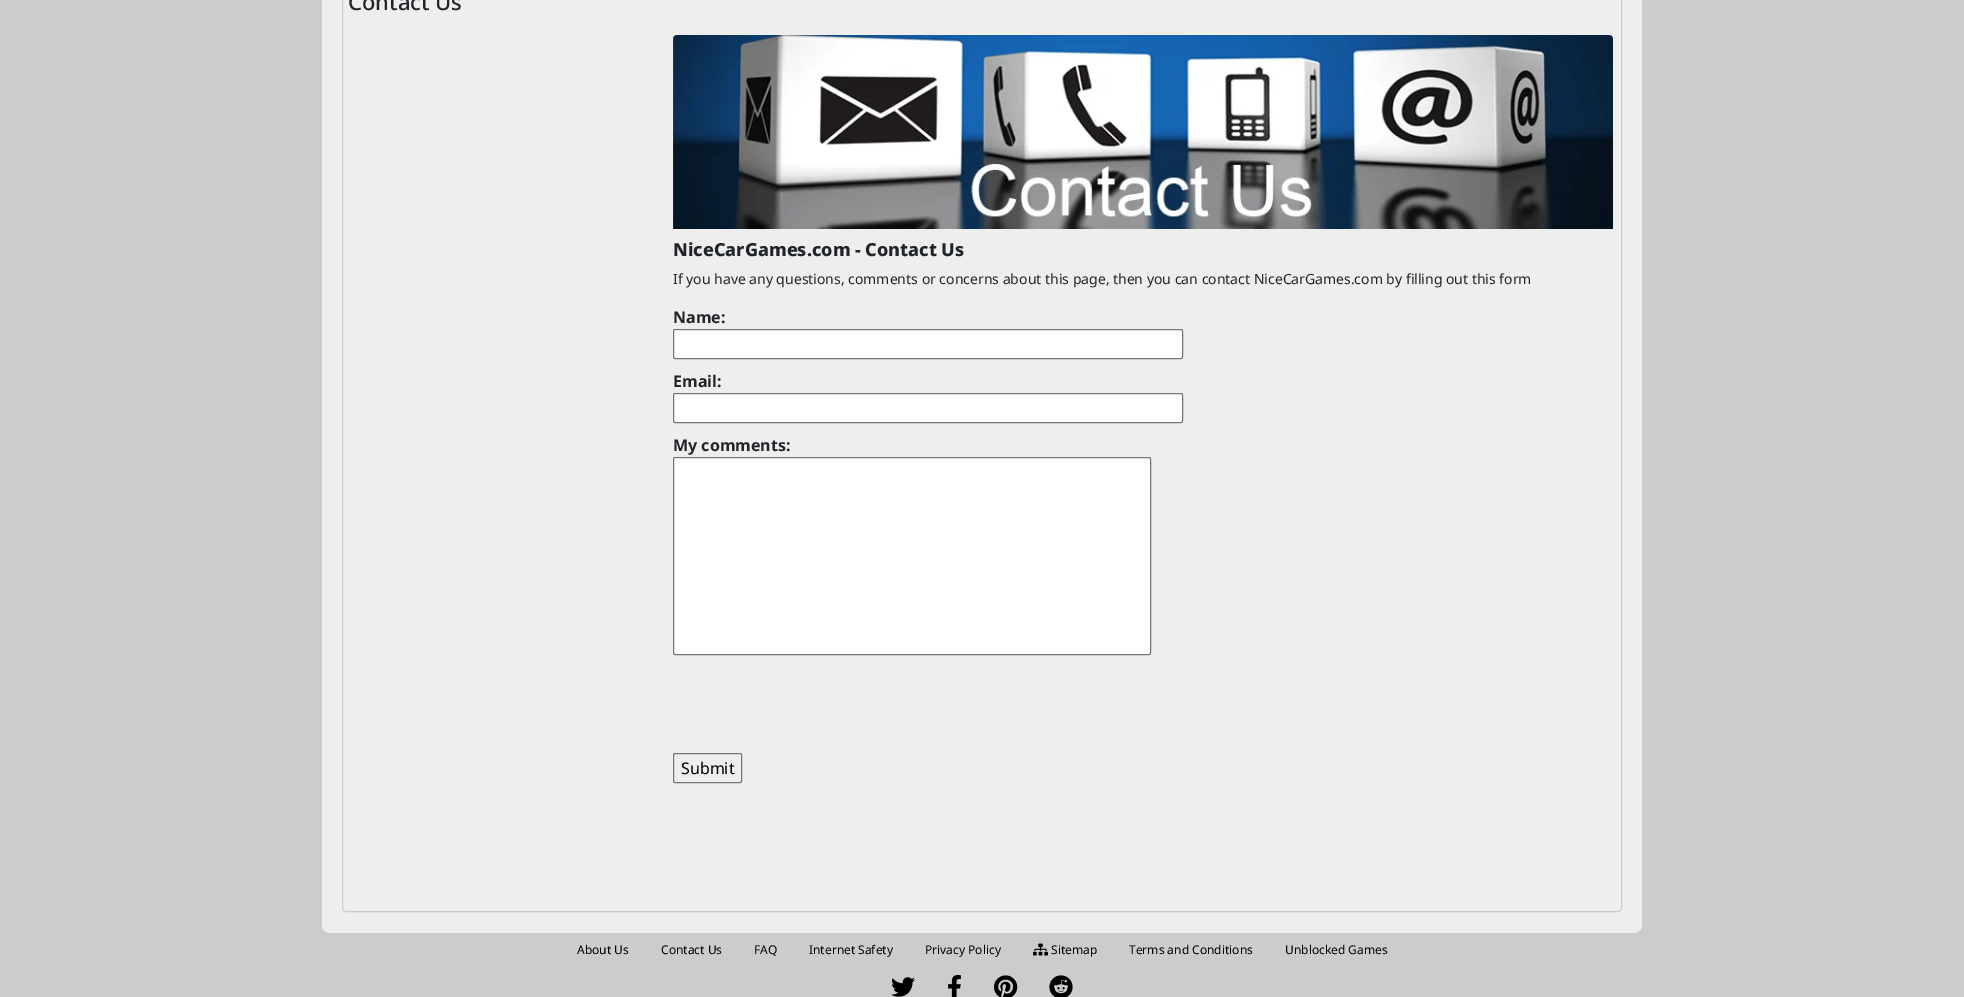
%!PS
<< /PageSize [1964 997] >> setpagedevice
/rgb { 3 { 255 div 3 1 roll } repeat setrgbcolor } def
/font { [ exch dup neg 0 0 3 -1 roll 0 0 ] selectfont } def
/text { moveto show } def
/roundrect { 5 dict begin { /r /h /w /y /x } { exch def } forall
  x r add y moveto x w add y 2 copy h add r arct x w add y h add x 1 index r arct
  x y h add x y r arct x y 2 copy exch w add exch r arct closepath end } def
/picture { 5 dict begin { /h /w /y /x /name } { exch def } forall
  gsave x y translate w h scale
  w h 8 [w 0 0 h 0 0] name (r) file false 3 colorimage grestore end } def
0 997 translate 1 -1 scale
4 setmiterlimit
204 204 204 rgb
0 0 1964 997 rectfill
238 238 238 rgb
322 -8 moveto 1320 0 rlineto 0 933 rlineto 0 4.5 -3.5 8 -8 8 rcurveto -1304 0 rlineto -4.5 0 -8 -3.5 -8 -8 rcurveto closepath fill
204 204 204 rgb
342.5 -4.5 1279 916 3.5 roundrect stroke
(img_01.rgb) 673 35 940 194 picture
255 255 255 rgb
673.5 329.5 509 29 1.5 roundrect gsave fill grestore
118 118 118 rgb
stroke
255 255 255 rgb
673.5 393.5 509 29 1.5 roundrect gsave fill grestore
118 118 118 rgb
stroke
255 255 255 rgb
673.5 457.5 477 197 1.5 roundrect gsave fill grestore
118 118 118 rgb
stroke
673.5 753.5 68 29 1.5 roundrect stroke
(img_02.rgb) 1033 943 15 13 picture
(img_03.rgb) 891 977 24 20 picture
(img_04.rgb) 948 975 13 22 picture
(img_05.rgb) 994 975 24 22 picture
(img_06.rgb) 1049 975 24 22 picture
/NotoSans-Medium 22 font
33 37 41 rgb
(Contact Us) 348 10 text
/NotoSans-ExtraBold 18 font
(NiceCarGames.com - Contact Us) 673 256 text
/NotoSans-Regular 14 font
(If you have any questions, comments or concerns about this page, then you can contact NiceCarGames.com by filling out this form) 673 284 text
/NotoSans-Bold 16 font
(Name:) 673 323 text
(Email:) 673 387 text
(My comments:) 673 451 text
/NotoSans-Regular 16 font
0 0 0 rgb
(Submit) 681 774 text
/NotoSans-Regular 12 font
(About Us) 577 954 text
(Contact Us) 661 954 text
(FAQ) 754 954 text
(Internet Safety) 809 954 text
(Privacy Policy) 925 954 text
(Sitemap) 1051 954 text
(Terms and Conditions) 1129 954 text
(Unblocked Games) 1285 954 text
showpage
